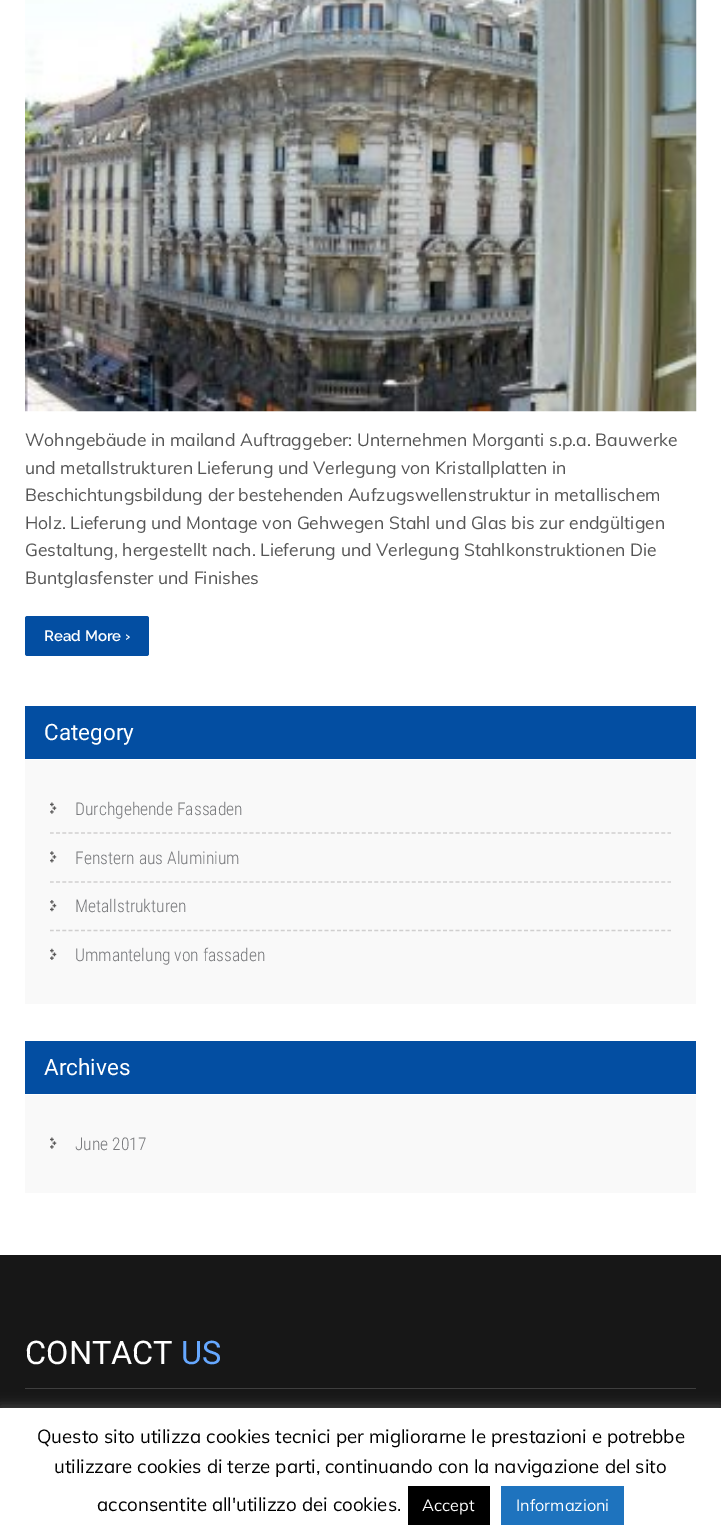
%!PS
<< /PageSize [721 1539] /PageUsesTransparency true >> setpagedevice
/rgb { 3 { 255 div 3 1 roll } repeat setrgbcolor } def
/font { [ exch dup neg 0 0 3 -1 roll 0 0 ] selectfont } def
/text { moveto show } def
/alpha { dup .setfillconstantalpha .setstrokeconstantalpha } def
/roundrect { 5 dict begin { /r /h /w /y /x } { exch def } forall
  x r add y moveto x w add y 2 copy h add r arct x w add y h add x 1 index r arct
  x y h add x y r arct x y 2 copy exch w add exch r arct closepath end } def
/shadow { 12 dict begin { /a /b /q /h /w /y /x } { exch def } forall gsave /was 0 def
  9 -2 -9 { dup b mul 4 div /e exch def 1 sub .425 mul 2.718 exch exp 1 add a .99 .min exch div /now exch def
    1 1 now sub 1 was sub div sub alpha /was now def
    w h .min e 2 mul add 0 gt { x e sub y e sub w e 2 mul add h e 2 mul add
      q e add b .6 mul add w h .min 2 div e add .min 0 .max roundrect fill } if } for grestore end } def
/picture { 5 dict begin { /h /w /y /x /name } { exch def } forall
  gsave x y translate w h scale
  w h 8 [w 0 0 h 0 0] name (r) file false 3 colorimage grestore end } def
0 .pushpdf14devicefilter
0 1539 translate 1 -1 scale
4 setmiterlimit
255 255 255 rgb
0 0 721 1539 rectfill
(img_01.rgb) 25 0 672 412 picture
3 78 162 rgb
25 616 124 40 2.5 roundrect fill
25 706 671 53 rectfill
249 249 249 rgb
25 760 671 244 rectfill
(img_02.rgb) 50 802 7 12 picture
208 207 207 rgb
1.2 setlinewidth
[3.75 2.49] 0 setdash
50 833 moveto 621 0 rlineto stroke
(img_03.rgb) 50 851 7 12 picture
50 882 moveto 621 0 rlineto stroke
(img_04.rgb) 50 900 7 12 picture
50 930.5 moveto 621 0 rlineto stroke
(img_05.rgb) 50 948 7 12 picture
3 78 162 rgb
25 1041 671 53 rectfill
249 249 249 rgb
25 1095 671 98 rectfill
(img_02.rgb) 50 1137 7 12 picture
23 23 23 rgb
0 1255 721 153 rectfill
63 63 63 rgb
25 1388 671 1 rectfill
172 171 171 rgb
0 1406 721 133 0 6 0.3 shadow
255 255 255 rgb
0 1408 721 131 rectfill
0 0 0 rgb
408 1486 82 39 rectfill
30 115 190 rgb
501 1486 123 39 rectfill
/Muli-Regular 17.5 font
85 85 85 rgb
(Wohngebäude in mailand Auftraggeber: Unternehmen Morganti s.p.a. Bauwerke) 25 446 text
(und metallstrukturen Lieferung und Verlegung von Kristallplatten in) 25 474 text
(Beschichtungsbildung der bestehenden Aufzugswellenstruktur in metallischem) 25 501 text
(Holz. Lieferung und Montage von Gehwegen Stahl und Glas bis zur endgültigen) 25 529 text
(Gestaltung, hergestellt nach. Lieferung und Verlegung Stahlkonstruktionen Die) 25 556 text
(Buntglasfenster und Finishes) 25 584 text
/Raleway-SemiBold 15 font
255 255 255 rgb
(Read More ›) 44 641 text
/Roboto-Regular 22.5 font
(Category) 44 740 text
/RobotoCondensed-Light 17.5 font
120 121 124 rgb
(Durchgehende Fassaden) 75 815 text
(Fenstern aus Aluminium) 75 864 text
(Metallstrukturen) 75 912 text
(Ummantelung von fassaden) 75 961 text
/Roboto-Regular 22.5 font
255 255 255 rgb
(Archives) 44 1075 text
/RobotoCondensed-Light 17.5 font
120 121 124 rgb
(June 2017) 75 1150 text
/Roboto-Regular 32.5 font
255 255 255 rgb
(CONTACT) 25 1364 text
102 168 255 rgb
(US) 181 1364 text
/Muli-Regular 18.75 font
0 0 0 rgb
(Questo sito utilizza cookies tecnici per migliorarne le prestazioni e potrebbe) 37 1443 text
(utilizzare cookies di terze parti, continuando con la navigazione del sito) 54 1473 text
(acconsentite all'utilizzo dei cookies.) 97 1511 text
/Muli-Regular 16.25 font
255 255 255 rgb
(Accept) 422 1511 text
(Informazioni) 516 1511 text
.poppdf14devicefilter showpage
